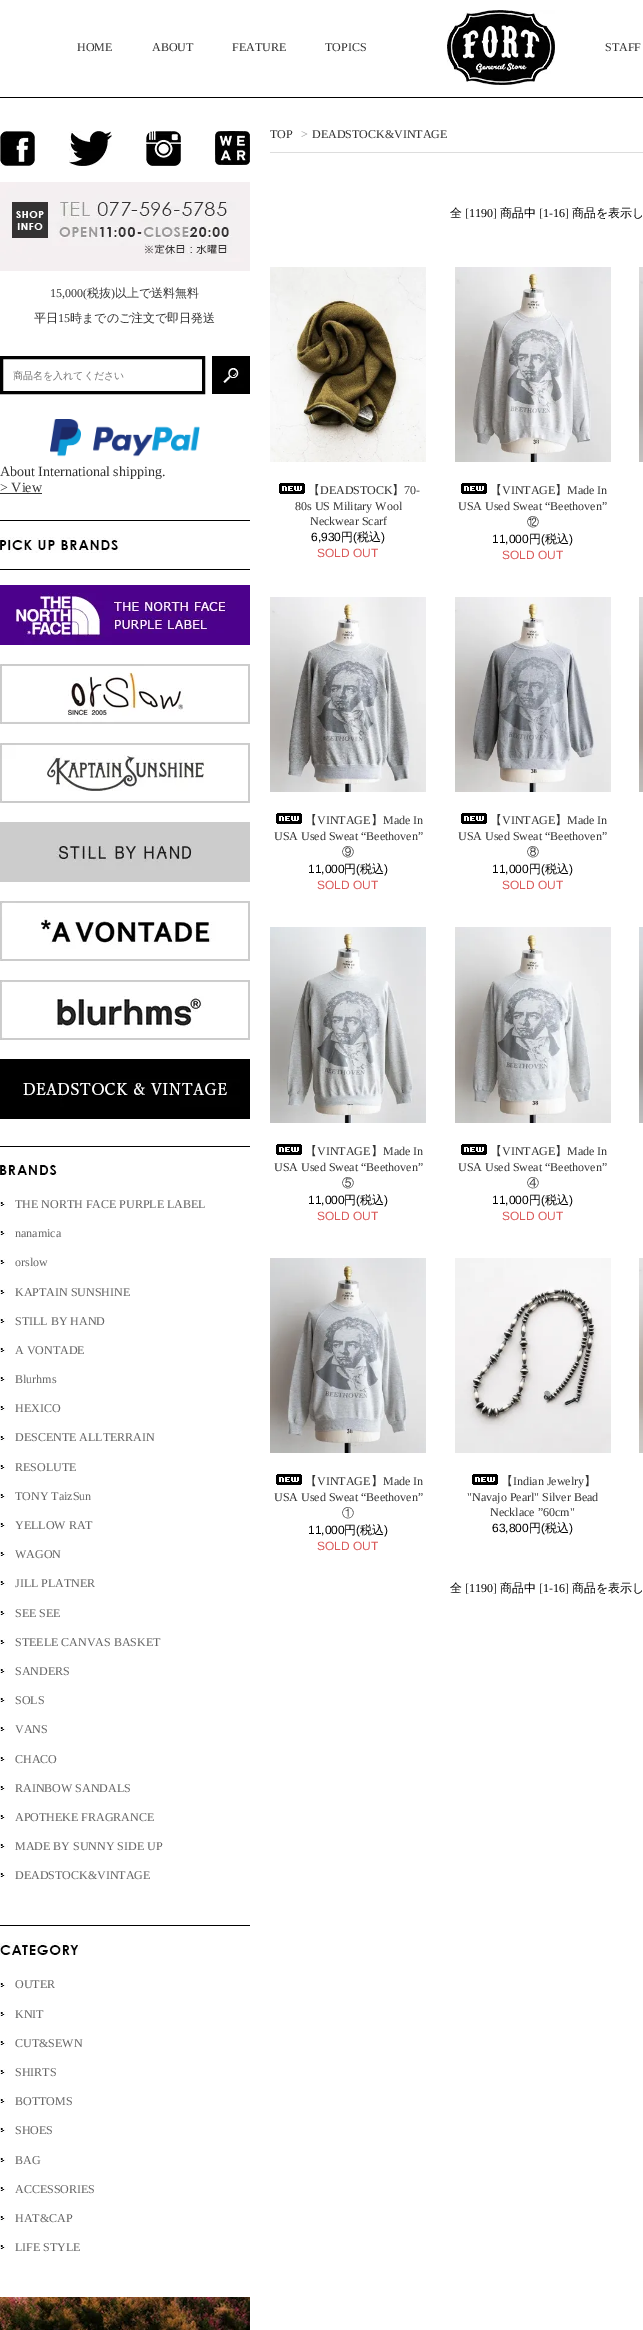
%!PS
<< /PageSize [643 2330] >> setpagedevice
/rgb { 3 { 255 div 3 1 roll } repeat setrgbcolor } def
/font { [ exch dup neg 0 0 3 -1 roll 0 0 ] selectfont } def
/text { moveto show } def
/picture { 5 dict begin { /h /w /y /x /name } { exch def } forall
  gsave x y translate w h scale
  w h 8 [w 0 0 h 0 0] name (r) file false 3 colorimage grestore end } def
0 2330 translate 1 -1 scale
4 setmiterlimit
255 255 255 rgb
0 0 643 2330 rectfill
0 0 0 rgb
0 97 643 1 rectfill
(img_01.rgb) 447 10 108 75 picture
(img_02.rgb) 0 131 35 35 picture
(img_03.rgb) 69 131 43 35 picture
(img_04.rgb) 146 131 35 35 picture
(img_05.rgb) 215 131 35 34 picture
(img_06.rgb) 0 182 250 89 picture
2 2 2 rgb
3 setlinewidth
1.5 357.5 202 35 rectstroke
(img_07.rgb) 212 356 38 38 picture
(img_08.rgb) 50 419 150 38 picture
51 51 51 rgb
0 493 42 1 rectfill
0 0 0 rgb
0 520 250 1 rectfill
0 569 250 1 rectfill
(img_09.rgb) 0 537 120 16 picture
(img_10.rgb) 0 585 250 60 picture
(img_11.rgb) 0 664 250 60 picture
(img_12.rgb) 0 743 250 60 picture
(img_13.rgb) 0 822 250 60 picture
(img_14.rgb) 0 901 250 60 picture
(img_15.rgb) 0 980 250 60 picture
(img_16.rgb) 0 1059 250 60 picture
0 1146 250 1 rectfill
(img_17.rgb) 0 1163 60 12 picture
(img_18.rgb) 0 1201 8 6 picture
(img_18.rgb) 0 1230 8 6 picture
(img_18.rgb) 0 1259 8 6 picture
(img_18.rgb) 0 1289 8 6 picture
(img_18.rgb) 0 1318 8 6 picture
(img_18.rgb) 0 1347 8 6 picture
(img_18.rgb) 0 1376 8 6 picture
(img_18.rgb) 0 1405 8 6 picture
(img_18.rgb) 0 1435 8 6 picture
(img_18.rgb) 0 1464 8 6 picture
(img_18.rgb) 0 1493 8 6 picture
(img_18.rgb) 0 1522 8 6 picture
(img_18.rgb) 0 1551 8 6 picture
(img_18.rgb) 0 1580 8 6 picture
(img_18.rgb) 0 1610 8 6 picture
(img_18.rgb) 0 1639 8 6 picture
(img_18.rgb) 0 1668 8 6 picture
(img_18.rgb) 0 1697 8 6 picture
(img_18.rgb) 0 1726 8 6 picture
(img_18.rgb) 0 1756 8 6 picture
(img_18.rgb) 0 1785 8 6 picture
(img_18.rgb) 0 1814 8 6 picture
(img_18.rgb) 0 1843 8 6 picture
(img_18.rgb) 0 1872 8 6 picture
0 1925 250 1 rectfill
(img_19.rgb) 0 1942 80 13 picture
(img_18.rgb) 0 1982 8 6 picture
(img_18.rgb) 0 2011 8 6 picture
(img_18.rgb) 0 2040 8 6 picture
(img_18.rgb) 0 2069 8 6 picture
(img_18.rgb) 0 2098 8 6 picture
(img_18.rgb) 0 2127 8 6 picture
(img_18.rgb) 0 2157 8 6 picture
(img_18.rgb) 0 2186 8 6 picture
(img_18.rgb) 0 2215 8 6 picture
(img_18.rgb) 0 2244 8 6 picture
(img_20.rgb) 0 2297 250 33 picture
221 221 221 rgb
270 152 373 1 rectfill
(img_21.rgb) 639 267 4 195 picture
(img_22.rgb) 270 267 156 195 picture
(img_23.rgb) 279 483 26 11 picture
(img_24.rgb) 455 267 156 195 picture
(img_23.rgb) 461 483 26 11 picture
(img_25.rgb) 639 597 4 195 picture
(img_26.rgb) 270 597 156 195 picture
(img_23.rgb) 276 813 26 11 picture
(img_27.rgb) 455 597 156 195 picture
(img_23.rgb) 461 813 26 11 picture
(img_28.rgb) 639 927 4 196 picture
(img_29.rgb) 270 927 156 196 picture
(img_23.rgb) 276 1144 26 11 picture
(img_30.rgb) 455 927 156 196 picture
(img_23.rgb) 461 1144 26 11 picture
(img_31.rgb) 639 1258 4 195 picture
(img_32.rgb) 270 1258 156 195 picture
(img_23.rgb) 276 1474 26 11 picture
(img_33.rgb) 455 1258 156 195 picture
(img_23.rgb) 472 1474 26 11 picture
/LiberationSerif-Regular 12 font
51 51 51 rgb
(HOME) 77 51 text
(ABOUT) 152 51 text
(FEATURE) 232 51 text
(TOPICS) 325 51 text
(STAFF) 605 51 text
(15,000\() 50 297 text
/WenQuanYiZenHei-Medium 12 font
(税抜) 87 297 text
/LiberationSerif-Regular 12 font
(\)) 111 297 text
/WenQuanYiZenHei-Medium 12 font
(以上で送料無料) 115 297 text
(平日) 34 322 text
/LiberationSerif-Regular 12 font
(15) 58 322 text
/WenQuanYiZenHei-Medium 12 font
(時までのご注文で即日発送) 70 322 text
/WenQuanYiZenHei-Medium 10 font
117 117 117 rgb
(商品名を入れてください) 13 379 text
/LiberationSerif-Regular 14 font
51 51 51 rgb
(About International shipping.) 0 476 text
(> View) 0 492 text
/LiberationSerif-Regular 12 font
102 102 102 rgb
(THE NORTH FACE PURPLE LABEL) 15 1208 text
(nanamica) 15 1237 text
(orslow) 15 1266 text
(KAPTAIN SUNSHINE) 15 1296 text
(STILL BY HAND) 15 1325 text
(A VONTADE) 15 1354 text
(Blurhms) 15 1383 text
(HEXICO) 15 1412 text
(DESCENTE ALLTERRAIN) 15 1441 text
(RESOLUTE) 15 1471 text
(TONY TaizSun) 15 1500 text
(YELLOW RAT) 15 1529 text
(WAGON) 15 1558 text
(JILL PLATNER) 15 1587 text
(SEE SEE) 15 1617 text
(STEELE CANVAS BASKET) 15 1646 text
(SANDERS) 15 1675 text
(SOLS) 15 1704 text
(VANS) 15 1733 text
(CHACO) 15 1763 text
(RAINBOW SANDALS) 15 1792 text
(APOTHEKE FRAGRANCE) 15 1821 text
(MADE BY SUNNY SIDE UP) 15 1850 text
(DEADSTOCK&VINTAGE) 15 1879 text
(OUTER) 15 1988 text
(KNIT) 15 2018 text
(CUT&SEWN) 15 2047 text
(SHIRTS) 15 2076 text
(BOTTOMS) 15 2105 text
(SHOES) 15 2134 text
(BAG) 15 2164 text
(ACCESSORIES) 15 2193 text
(HAT&CAP) 15 2222 text
(LIFE STYLE) 15 2251 text
51 51 51 rgb
(TOP) 270 138 text
153 153 153 rgb
(>) 301 138 text
51 51 51 rgb
(DEADSTOCK&VINTAGE) 312 138 text
/WenQuanYiZenHei-Medium 12 font
0 0 0 rgb
(全) 450 217 text
/LiberationSerif-Regular 12 font
([1190]) 465 217 text
/WenQuanYiZenHei-Medium 12 font
(商品中) 500 217 text
/LiberationSerif-Regular 12 font
([1-16]) 539 217 text
/WenQuanYiZenHei-Medium 12 font
(商品を表示し) 572 217 text
51 51 51 rgb
(【) 308 494 text
/LiberationSerif-Regular 12 font
(DEADSTOCK) 320 494 text
/WenQuanYiZenHei-Medium 12 font
(】) 392 494 text
/LiberationSerif-Regular 12 font
(70-) 404 494 text
(80s US Military Wool) 295 510 text
(Neckwear Scarf) 310 525 text
/LiberationSans-Regular 12 font
0 0 0 rgb
(6,930) 311 541 text
/WenQuanYiZenHei-Medium 12 font
(円) 341 541 text
/LiberationSans-Regular 12 font
(\() 353 541 text
/WenQuanYiZenHei-Medium 12 font
(税込) 357 541 text
/LiberationSans-Regular 12 font
(\)) 381 541 text
218 88 88 rgb
(SOLD OUT) 317 557 text
/WenQuanYiZenHei-Medium 12 font
51 51 51 rgb
(【) 490 494 text
/LiberationSerif-Regular 12 font
(VINTAGE) 502 494 text
/WenQuanYiZenHei-Medium 12 font
(】) 555 494 text
/LiberationSerif-Regular 12 font
(Made In) 567 494 text
(USA Used Sweat “Beethoven”) 458 510 text
/WenQuanYiZenHei-Medium 12 font
(⑫) 527 526 text
/LiberationSans-Regular 12 font
0 0 0 rgb
(11,000) 492 543 text
/WenQuanYiZenHei-Medium 12 font
(円) 529 543 text
/LiberationSans-Regular 12 font
(\() 541 543 text
/WenQuanYiZenHei-Medium 12 font
(税込) 545 543 text
/LiberationSans-Regular 12 font
(\)) 569 543 text
218 88 88 rgb
(SOLD OUT) 502 559 text
/WenQuanYiZenHei-Medium 12 font
51 51 51 rgb
(【) 305 824 text
/LiberationSerif-Regular 12 font
(VINTAGE) 317 824 text
/WenQuanYiZenHei-Medium 12 font
(】) 371 824 text
/LiberationSerif-Regular 12 font
(Made In) 383 824 text
(USA Used Sweat “Beethoven”) 274 840 text
/WenQuanYiZenHei-Medium 12 font
(⑨) 342 856 text
/LiberationSans-Regular 12 font
0 0 0 rgb
(11,000) 308 873 text
/WenQuanYiZenHei-Medium 12 font
(円) 344 873 text
/LiberationSans-Regular 12 font
(\() 356 873 text
/WenQuanYiZenHei-Medium 12 font
(税込) 360 873 text
/LiberationSans-Regular 12 font
(\)) 384 873 text
218 88 88 rgb
(SOLD OUT) 317 889 text
/WenQuanYiZenHei-Medium 12 font
51 51 51 rgb
(【) 490 824 text
/LiberationSerif-Regular 12 font
(VINTAGE) 502 824 text
/WenQuanYiZenHei-Medium 12 font
(】) 555 824 text
/LiberationSerif-Regular 12 font
(Made In) 567 824 text
(USA Used Sweat “Beethoven”) 458 840 text
/WenQuanYiZenHei-Medium 12 font
(⑧) 527 856 text
/LiberationSans-Regular 12 font
0 0 0 rgb
(11,000) 492 873 text
/WenQuanYiZenHei-Medium 12 font
(円) 529 873 text
/LiberationSans-Regular 12 font
(\() 541 873 text
/WenQuanYiZenHei-Medium 12 font
(税込) 545 873 text
/LiberationSans-Regular 12 font
(\)) 569 873 text
218 88 88 rgb
(SOLD OUT) 502 889 text
/WenQuanYiZenHei-Medium 12 font
51 51 51 rgb
(【) 305 1155 text
/LiberationSerif-Regular 12 font
(VINTAGE) 317 1155 text
/WenQuanYiZenHei-Medium 12 font
(】) 371 1155 text
/LiberationSerif-Regular 12 font
(Made In) 383 1155 text
(USA Used Sweat “Beethoven”) 274 1171 text
/WenQuanYiZenHei-Medium 12 font
(⑤) 342 1187 text
/LiberationSans-Regular 12 font
0 0 0 rgb
(11,000) 308 1204 text
/WenQuanYiZenHei-Medium 12 font
(円) 344 1204 text
/LiberationSans-Regular 12 font
(\() 356 1204 text
/WenQuanYiZenHei-Medium 12 font
(税込) 360 1204 text
/LiberationSans-Regular 12 font
(\)) 384 1204 text
218 88 88 rgb
(SOLD OUT) 317 1220 text
/WenQuanYiZenHei-Medium 12 font
51 51 51 rgb
(【) 490 1155 text
/LiberationSerif-Regular 12 font
(VINTAGE) 502 1155 text
/WenQuanYiZenHei-Medium 12 font
(】) 555 1155 text
/LiberationSerif-Regular 12 font
(Made In) 567 1155 text
(USA Used Sweat “Beethoven”) 458 1171 text
/WenQuanYiZenHei-Medium 12 font
(④) 527 1187 text
/LiberationSans-Regular 12 font
0 0 0 rgb
(11,000) 492 1204 text
/WenQuanYiZenHei-Medium 12 font
(円) 529 1204 text
/LiberationSans-Regular 12 font
(\() 541 1204 text
/WenQuanYiZenHei-Medium 12 font
(税込) 545 1204 text
/LiberationSans-Regular 12 font
(\)) 569 1204 text
218 88 88 rgb
(SOLD OUT) 502 1220 text
/WenQuanYiZenHei-Medium 12 font
51 51 51 rgb
(【) 305 1485 text
/LiberationSerif-Regular 12 font
(VINTAGE) 317 1485 text
/WenQuanYiZenHei-Medium 12 font
(】) 371 1485 text
/LiberationSerif-Regular 12 font
(Made In) 383 1485 text
(USA Used Sweat “Beethoven”) 274 1501 text
/WenQuanYiZenHei-Medium 12 font
(①) 342 1517 text
/LiberationSans-Regular 12 font
0 0 0 rgb
(11,000) 308 1534 text
/WenQuanYiZenHei-Medium 12 font
(円) 344 1534 text
/LiberationSans-Regular 12 font
(\() 356 1534 text
/WenQuanYiZenHei-Medium 12 font
(税込) 360 1534 text
/LiberationSans-Regular 12 font
(\)) 384 1534 text
218 88 88 rgb
(SOLD OUT) 317 1550 text
/WenQuanYiZenHei-Medium 12 font
51 51 51 rgb
(【) 501 1485 text
/LiberationSerif-Regular 12 font
(Indian Jewelry) 513 1485 text
/WenQuanYiZenHei-Medium 12 font
(】) 584 1485 text
/LiberationSerif-Regular 12 font
("Navajo Pearl" Silver Bead) 467 1501 text
(Necklace ”60cm") 490 1516 text
/LiberationSans-Regular 12 font
0 0 0 rgb
(63,800) 492 1532 text
/WenQuanYiZenHei-Medium 12 font
(円) 529 1532 text
/LiberationSans-Regular 12 font
(\() 541 1532 text
/WenQuanYiZenHei-Medium 12 font
(税込) 545 1532 text
/LiberationSans-Regular 12 font
(\)) 569 1532 text
/WenQuanYiZenHei-Medium 12 font
(全) 450 1592 text
/LiberationSerif-Regular 12 font
([1190]) 465 1592 text
/WenQuanYiZenHei-Medium 12 font
(商品中) 500 1592 text
/LiberationSerif-Regular 12 font
([1-16]) 539 1592 text
/WenQuanYiZenHei-Medium 12 font
(商品を表示し) 572 1592 text
showpage
